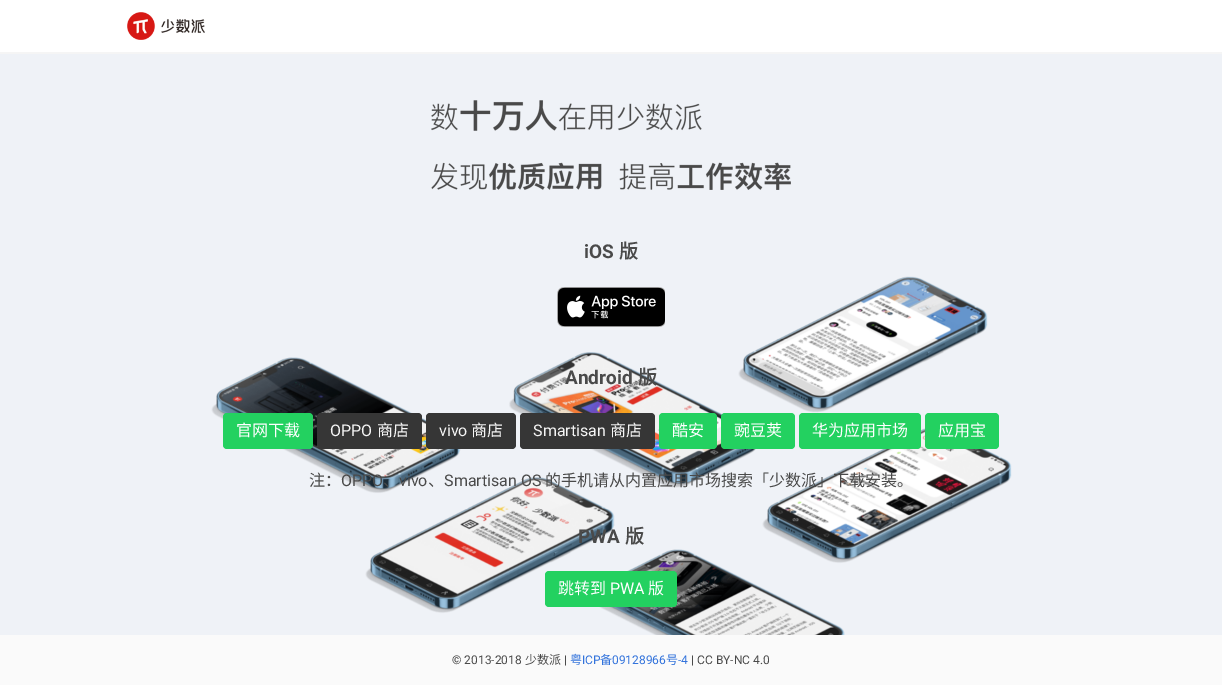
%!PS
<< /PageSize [1222 685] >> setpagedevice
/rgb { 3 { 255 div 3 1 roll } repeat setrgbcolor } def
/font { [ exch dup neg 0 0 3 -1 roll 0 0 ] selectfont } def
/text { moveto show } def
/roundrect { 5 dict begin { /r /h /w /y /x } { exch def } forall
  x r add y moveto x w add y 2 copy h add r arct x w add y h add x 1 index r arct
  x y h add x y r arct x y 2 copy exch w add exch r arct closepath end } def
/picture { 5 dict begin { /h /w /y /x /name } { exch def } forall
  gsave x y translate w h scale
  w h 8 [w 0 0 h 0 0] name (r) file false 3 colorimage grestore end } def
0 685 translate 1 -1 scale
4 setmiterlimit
239 242 247 rgb
0 0 1222 685 rectfill
(img_01.rgb) 211 276 801 359 picture
245 245 245 rgb
0 52 1222 2 rectfill
255 255 255 rgb
0 0 1222 52 rectfill
(img_02.rgb) 127 12 78 28 picture
(img_03.rgb) 431 100 360 90 picture
(img_04.rgb) 557 287 108 40 picture
35 209 96 rgb
223 413 90 36 4 roundrect fill
54 54 54 rgb
317 413 105 36 4 roundrect fill
426 413 90 36 4 roundrect fill
520 413 135 36 4 roundrect fill
35 209 96 rgb
659 413 58 36 4 roundrect fill
721 413 74 36 4 roundrect fill
799 413 122 36 4 roundrect fill
925 413 74 36 4 roundrect fill
545 571 132 36 4 roundrect fill
250 250 250 rgb
0 635 1222 50 rectfill
/Roboto-Bold 19 font
74 74 74 rgb
(iOS) 584 258 text
/NotoSansCJKSC-Bold 19 font
(版) 619 258 text
/Roboto-Bold 19 font
(Android) 565 384 text
/NotoSansCJKSC-Bold 19 font
(版) 638 384 text
/NotoSansCJKSC-Regular 16 font
255 255 255 rgb
(官网下载) 236 436 text
/Roboto-Regular 16 font
245 245 245 rgb
(OPPO) 330 436 text
/NotoSansCJKSC-Regular 16 font
(商店) 377 436 text
/Roboto-Regular 16 font
(vivo) 439 436 text
/NotoSansCJKSC-Regular 16 font
(商店) 471 436 text
/Roboto-Regular 16 font
(Smartisan) 533 436 text
/NotoSansCJKSC-Regular 16 font
(商店) 610 436 text
255 255 255 rgb
(酷安) 672 436 text
(豌豆荚) 734 436 text
(华为应用市场) 812 436 text
(应用宝) 938 436 text
74 74 74 rgb
(注：) 309 486 text
/Roboto-Regular 16 font
(OPPO) 341 486 text
/NotoSansCJKSC-Regular 16 font
(、) 383 486 text
/Roboto-Regular 16 font
(vivo) 399 486 text
/NotoSansCJKSC-Regular 16 font
(、) 428 486 text
/Roboto-Regular 16 font
(Smartisan OS) 444 486 text
/NotoSansCJKSC-Regular 16 font
(的手机请从内置应用市场搜索「少数派」下载安装。) 545 486 text
/Roboto-Bold 19 font
(PWA) 578 543 text
/NotoSansCJKSC-Bold 19 font
(版) 625 543 text
/NotoSansCJKSC-Regular 16 font
255 255 255 rgb
(跳转到) 558 594 text
/Roboto-Regular 16 font
(PWA) 610 594 text
/NotoSansCJKSC-Regular 16 font
(版) 648 594 text
/Roboto-Regular 12 font
74 74 74 rgb
(© 2013-2018) 452 664 text
/NotoSansCJKSC-Regular 12 font
(少数派) 525 664 text
/Roboto-Regular 12 font
(|) 564 664 text
/NotoSansCJKSC-Regular 12 font
50 115 220 rgb
(粤) 570 664 text
/Roboto-Regular 12 font
(ICP) 582 664 text
/NotoSansCJKSC-Regular 12 font
(备) 600 664 text
/Roboto-Regular 12 font
(09128966) 612 664 text
/NotoSansCJKSC-Regular 12 font
(号) 666 664 text
/Roboto-Regular 12 font
(-4) 678 664 text
74 74 74 rgb
(| CC BY-NC 4.0) 691 664 text
showpage
